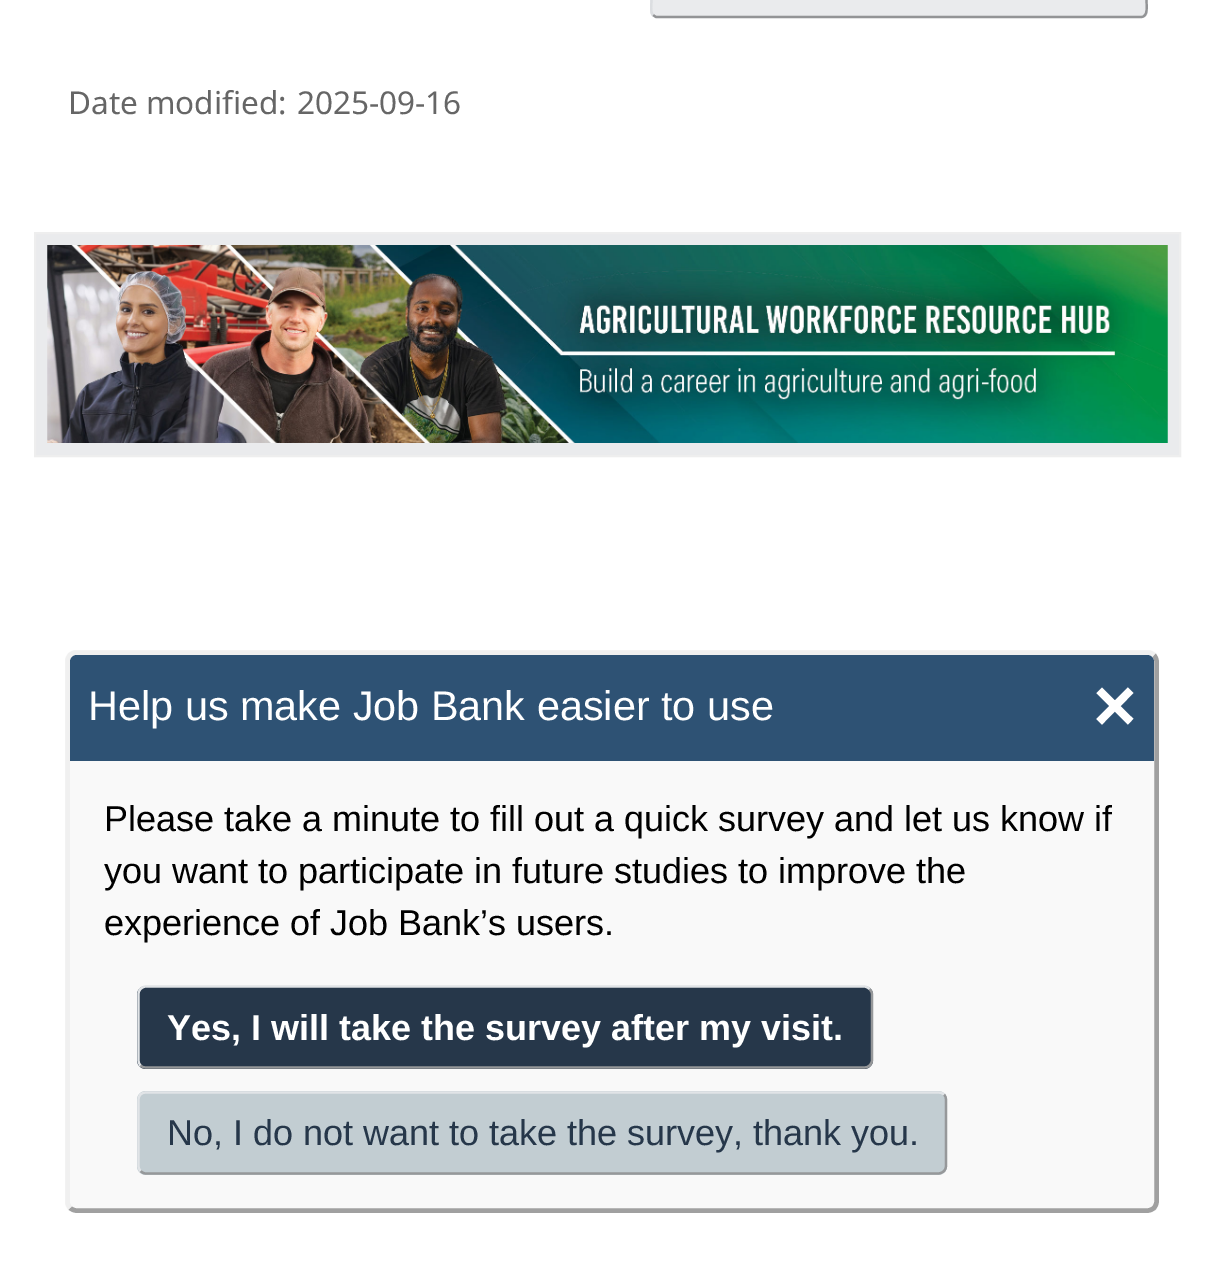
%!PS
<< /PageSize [1215 1267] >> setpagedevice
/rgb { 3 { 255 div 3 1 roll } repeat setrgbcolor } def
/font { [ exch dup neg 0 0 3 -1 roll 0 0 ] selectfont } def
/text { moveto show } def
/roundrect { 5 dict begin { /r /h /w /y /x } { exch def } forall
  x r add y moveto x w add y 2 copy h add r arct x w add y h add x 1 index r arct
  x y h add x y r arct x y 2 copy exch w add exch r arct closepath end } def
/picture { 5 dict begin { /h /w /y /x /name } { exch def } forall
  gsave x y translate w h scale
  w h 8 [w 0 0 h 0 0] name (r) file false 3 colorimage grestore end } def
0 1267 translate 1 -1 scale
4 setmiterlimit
255 255 255 rgb
0 0 1215 1267 rectfill
234 235 237 rgb
650 -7 498 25 7 roundrect fill
147 148 150 rgb
2.2 setlinewidth
1144.5 -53.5 moveto 3.5 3.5 2 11.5 2 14 rcurveto 0 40.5 rlineto 0 4 2 16 -5.5 16 rcurveto -485 0 rlineto -3 -2 rlineto stroke
220 222 225 rgb
653 15 moveto -3 -3 -1.5 -11 -1.5 -14 rcurveto 0 -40.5 rlineto 0 -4 -2.5 -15.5 5.5 -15.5 rcurveto 485 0 rlineto 2.5 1.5 rlineto stroke
234 235 237 rgb
35 233 moveto 1145 0 rlineto 0 223 rlineto -1145 0 rlineto closepath gsave fill grestore
238 238 238 rgb
2 setlinewidth
stroke
(img_01.rgb) 47 245 1121 198 picture
249 249 249 rgb
65 650 1094 563 11 roundrect fill
160 160 160 rgb
4.5 setlinewidth
1154 655 moveto 1.5 2 2.5 4 2.5 6.5 rcurveto 0 540 rlineto 0 2.5 -1 4.5 -2.5 6.5 rcurveto -2 1.5 -4 2.5 -6.5 2.5 rcurveto -1071 0 rlineto -2.5 0 -4.5 -1 -6.5 -2.5 rcurveto stroke
240 240 240 rgb
70 1208 moveto -1.5 -2 -2.5 -4 -2.5 -6.5 rcurveto 0 -540 rlineto 0 -2.5 1 -4.5 2.5 -6.5 rcurveto 2 -1.5 4 -2.5 6.5 -2.5 rcurveto 1071 0 rlineto 2.5 0 4.5 1 6.5 2.5 rcurveto stroke
46 82 116 rgb
77 655 moveto 1070 0 rlineto 4 0 7 3 7 7 rcurveto 0 99 rlineto -1084 0 rlineto 0 -99 rlineto 0 -4 3 -7 7 -7 rcurveto closepath fill
38 55 74 rgb
137 986 736 83 9 roundrect fill
150 152 154 rgb
2.2 setlinewidth
869.5 989 moveto 1.5 1.5 2.5 3.5 2.5 5.5 rcurveto 0 65.5 rlineto 0 2 -1 4 -2.5 5.5 rcurveto -1.5 1.5 -3.5 2 -5.5 2 rcurveto -718 0 rlineto -2 0 -4 -0.5 -5.5 -2 rcurveto stroke
225 228 231 rgb
140.5 1065.5 moveto -1.5 -1.5 -2 -3.5 -2 -5.5 rcurveto 0 -65.5 rlineto 0 -2 0.5 -4 2 -5.5 rcurveto 1.5 -1.5 3.5 -2.5 5.5 -2.5 rcurveto 718 0 rlineto 2 0 4 1 5.5 2.5 rcurveto stroke
194 205 210 rgb
137 1091 810 84 9 roundrect fill
150 152 154 rgb
944 1094.5 moveto 1.5 1.5 2 3.5 2 5.5 rcurveto 0 65.5 rlineto 0 2 -0.5 4 -2 5.5 rcurveto -1.5 1.5 -3.5 2.5 -6 2.5 rcurveto -792 0 rlineto -2 0 -4 -1 -5.5 -2.5 rcurveto stroke
225 228 231 rgb
140.5 1171 moveto -1.5 -1.5 -2 -3.5 -2 -5.5 rcurveto 0 -65.5 rlineto 0 -2 0.5 -4 2 -5.5 rcurveto 1.5 -1.5 3.5 -2 5.5 -2 rcurveto 792 0 rlineto 2.5 0 4.5 0.5 6 2 rcurveto stroke
/NotoSans-Regular 31.5 font
102 102 102 rgb
(Date modified:) 68 114 text
(2025-09-16) 297 114 text
/LiberationSans-Regular 41.4 font
255 255 255 rgb
(Help us make Job Bank easier to use) 88 720 text
/LiberationSans-Bold 75 font
(×) 1093 731 text
/LiberationSans-Regular 36 font
0 0 0 rgb
(Please take a minute to fill out a quick survey and let us know if) 104 831 text
(you want to participate in future studies to improve the) 104 883 text
(experience of Job Bank’s users.) 104 935 text
/LiberationSans-Bold 36 font
255 255 255 rgb
(Yes, I will take the survey after my visit.) 167 1040 text
/LiberationSans-Regular 36 font
38 55 74 rgb
(No, I do not want to take the survey, thank you.) 167 1145 text
showpage
